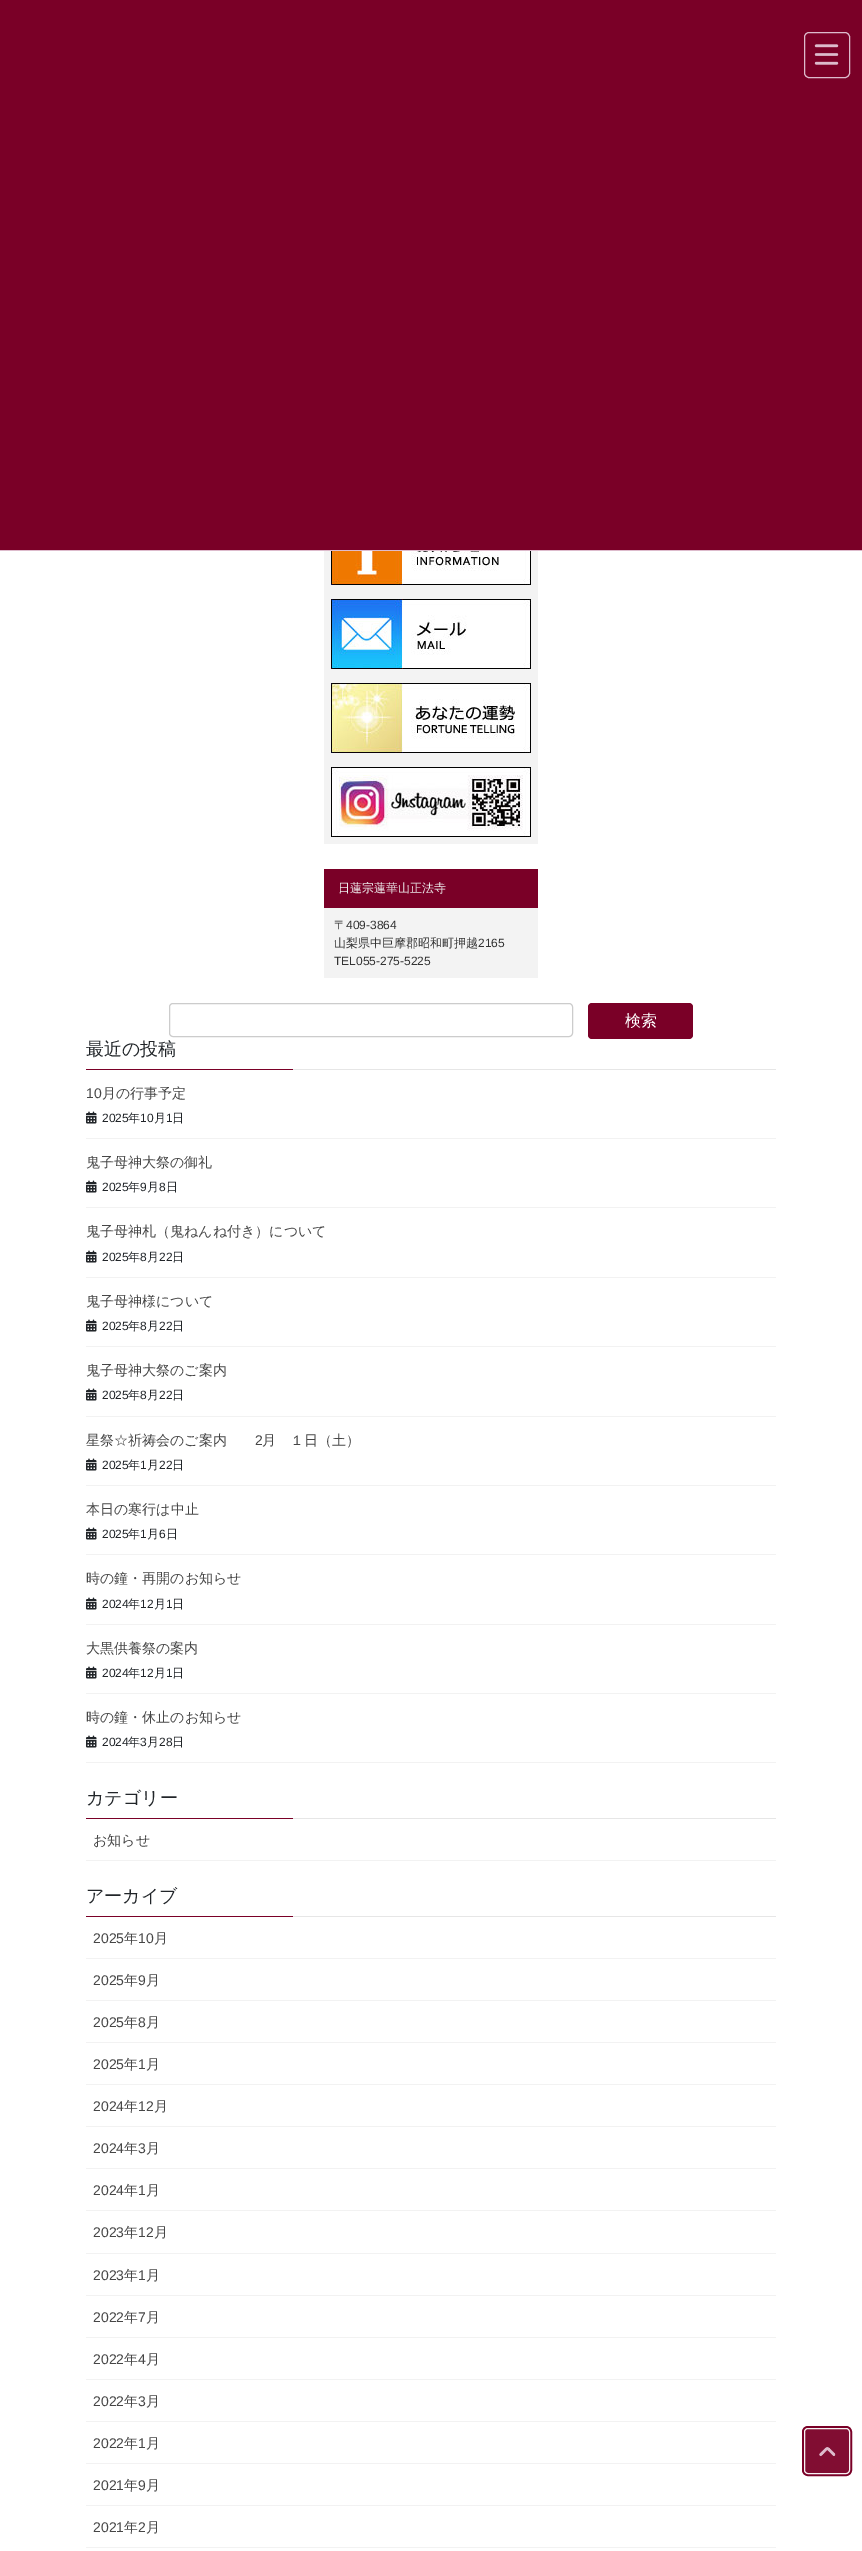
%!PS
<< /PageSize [862 2551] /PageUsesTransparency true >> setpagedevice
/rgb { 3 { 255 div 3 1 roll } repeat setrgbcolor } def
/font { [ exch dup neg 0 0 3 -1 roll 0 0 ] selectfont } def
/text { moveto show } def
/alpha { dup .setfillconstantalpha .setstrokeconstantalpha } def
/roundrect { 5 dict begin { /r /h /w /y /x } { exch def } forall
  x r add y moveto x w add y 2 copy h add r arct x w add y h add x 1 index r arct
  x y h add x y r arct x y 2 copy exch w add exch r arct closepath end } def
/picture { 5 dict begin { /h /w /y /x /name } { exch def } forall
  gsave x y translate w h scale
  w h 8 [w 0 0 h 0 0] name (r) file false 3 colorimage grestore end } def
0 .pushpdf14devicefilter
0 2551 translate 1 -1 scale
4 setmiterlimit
255 255 255 rgb
0 0 862 2551 rectfill
122 0 39 rgb
0 0 862 550 rectfill
221 187 204 rgb
0 550 862 1 rectfill
(img_01.rgb) 814 44 25 21 picture
804.5 32.5 45 45 4.5 roundrect stroke
243 243 243 rgb
324 551 214 293 rectfill
(img_02.rgb) 331 551 200 34 picture
(img_03.rgb) 331 599 200 70 picture
(img_04.rgb) 331 683 200 70 picture
(img_05.rgb) 331 767 200 70 picture
122 0 39 rgb
324 869 214 39 rectfill
243 243 243 rgb
324 908 214 70 rectfill
204 204 204 rgb
169.5 1003.5 403 33 3.5 roundrect stroke
122 0 39 rgb
588 1003 105 36 4 roundrect fill
230 230 230 rgb
293 1069 483 1 rectfill
122 0 39 rgb
86 1069 207 1 rectfill
242 242 242 rgb
86 1138 690 1 rectfill
(img_06.rgb) 86 1111 11 13 picture
86 1207 690 1 rectfill
(img_06.rgb) 86 1180 11 13 picture
86 1277 690 1 rectfill
(img_06.rgb) 86 1250 11 13 picture
86 1346 690 1 rectfill
(img_06.rgb) 86 1319 11 13 picture
86 1416 690 1 rectfill
(img_06.rgb) 86 1388 11 13 picture
86 1485 690 1 rectfill
(img_06.rgb) 86 1458 11 13 picture
86 1554 690 1 rectfill
(img_06.rgb) 86 1527 11 13 picture
86 1624 690 1 rectfill
(img_06.rgb) 86 1597 11 13 picture
86 1693 690 1 rectfill
(img_06.rgb) 86 1666 11 13 picture
86 1762 690 1 rectfill
(img_06.rgb) 86 1735 11 13 picture
230 230 230 rgb
293 1818 483 1 rectfill
122 0 39 rgb
86 1818 207 1 rectfill
242 242 242 rgb
86 1860 690 1 rectfill
230 230 230 rgb
293 1916 483 1 rectfill
122 0 39 rgb
86 1916 207 1 rectfill
242 242 242 rgb
86 1958 690 1 rectfill
86 2000 690 1 rectfill
86 2042 690 1 rectfill
86 2084 690 1 rectfill
86 2126 690 1 rectfill
86 2168 690 1 rectfill
86 2210 690 1 rectfill
86 2253 690 1 rectfill
86 2295 690 1 rectfill
86 2337 690 1 rectfill
86 2379 690 1 rectfill
86 2421 690 1 rectfill
86 2463 690 1 rectfill
86 2505 690 1 rectfill
86 2547 690 1 rectfill
122 0 39 rgb
2 setlinewidth
803 2427 48 48 5 roundrect stroke
0.95 alpha
804 2428 46 46 4 roundrect fill
1 alpha
(img_07.rgb) 819 2447 17 10 picture
0.95 alpha
255 255 255 rgb
1 setlinewidth
804.5 2428.5 45 45 3.5 roundrect stroke
/WenQuanYiZenHei-Medium 12 font
1 alpha
238 238 238 rgb
(日蓮宗蓮華山正法寺) 338 892 text
51 51 51 rgb
(〒) 334 929 text
/LiberationSans-Regular 12 font
(409-3864) 346 929 text
/WenQuanYiZenHei-Medium 12 font
(山梨県中巨摩郡昭和町押越) 334 947 text
/LiberationSans-Regular 12 font
(2165) 478 947 text
(TEL055-275-5225) 334 965 text
/WenQuanYiZenHei-Medium 16 font
255 255 255 rgb
(検索) 625 1026 text
/WenQuanYiZenHei-Medium 18 font
33 37 41 rgb
(最近の投稿) 86 1055 text
/LiberationSans-Regular 14 font
70 70 70 rgb
(10) 86 1098 text
/WenQuanYiZenHei-Medium 14 font
(月の行事予定) 102 1098 text
/LiberationSans-Regular 12 font
33 37 41 rgb
(2025) 102 1122 text
/WenQuanYiZenHei-Medium 12 font
(年) 128 1122 text
/LiberationSans-Regular 12 font
(10) 140 1122 text
/WenQuanYiZenHei-Medium 12 font
(月) 154 1122 text
/LiberationSans-Regular 12 font
(1) 166 1122 text
/WenQuanYiZenHei-Medium 12 font
(日) 172 1122 text
/WenQuanYiZenHei-Medium 14 font
70 70 70 rgb
(鬼子母神大祭の御礼) 86 1167 text
/LiberationSans-Regular 12 font
33 37 41 rgb
(2025) 102 1191 text
/WenQuanYiZenHei-Medium 12 font
(年) 128 1191 text
/LiberationSans-Regular 12 font
(9) 140 1191 text
/WenQuanYiZenHei-Medium 12 font
(月) 147 1191 text
/LiberationSans-Regular 12 font
(8) 159 1191 text
/WenQuanYiZenHei-Medium 12 font
(日) 166 1191 text
/WenQuanYiZenHei-Medium 14 font
70 70 70 rgb
(鬼子母神札（鬼ねんね付き）について) 86 1236 text
/LiberationSans-Regular 12 font
33 37 41 rgb
(2025) 102 1261 text
/WenQuanYiZenHei-Medium 12 font
(年) 128 1261 text
/LiberationSans-Regular 12 font
(8) 140 1261 text
/WenQuanYiZenHei-Medium 12 font
(月) 147 1261 text
/LiberationSans-Regular 12 font
(22) 159 1261 text
/WenQuanYiZenHei-Medium 12 font
(日) 172 1261 text
/WenQuanYiZenHei-Medium 14 font
70 70 70 rgb
(鬼子母神様について) 86 1306 text
/LiberationSans-Regular 12 font
33 37 41 rgb
(2025) 102 1330 text
/WenQuanYiZenHei-Medium 12 font
(年) 128 1330 text
/LiberationSans-Regular 12 font
(8) 140 1330 text
/WenQuanYiZenHei-Medium 12 font
(月) 147 1330 text
/LiberationSans-Regular 12 font
(22) 159 1330 text
/WenQuanYiZenHei-Medium 12 font
(日) 172 1330 text
/WenQuanYiZenHei-Medium 14 font
70 70 70 rgb
(鬼子母神大祭のご案内) 86 1375 text
/LiberationSans-Regular 12 font
33 37 41 rgb
(2025) 102 1399 text
/WenQuanYiZenHei-Medium 12 font
(年) 128 1399 text
/LiberationSans-Regular 12 font
(8) 140 1399 text
/WenQuanYiZenHei-Medium 12 font
(月) 147 1399 text
/LiberationSans-Regular 12 font
(22) 159 1399 text
/WenQuanYiZenHei-Medium 12 font
(日) 172 1399 text
/WenQuanYiZenHei-Medium 14 font
70 70 70 rgb
(星祭☆祈祷会のご案内) 86 1445 text
/LiberationSans-Regular 14 font
(2) 255 1445 text
/WenQuanYiZenHei-Medium 14 font
(月　１日（土）) 262 1445 text
/LiberationSans-Regular 12 font
33 37 41 rgb
(2025) 102 1469 text
/WenQuanYiZenHei-Medium 12 font
(年) 128 1469 text
/LiberationSans-Regular 12 font
(1) 140 1469 text
/WenQuanYiZenHei-Medium 12 font
(月) 147 1469 text
/LiberationSans-Regular 12 font
(22) 159 1469 text
/WenQuanYiZenHei-Medium 12 font
(日) 172 1469 text
/WenQuanYiZenHei-Medium 14 font
70 70 70 rgb
(本日の寒行は中止) 86 1514 text
/LiberationSans-Regular 12 font
33 37 41 rgb
(2025) 102 1538 text
/WenQuanYiZenHei-Medium 12 font
(年) 128 1538 text
/LiberationSans-Regular 12 font
(1) 140 1538 text
/WenQuanYiZenHei-Medium 12 font
(月) 147 1538 text
/LiberationSans-Regular 12 font
(6) 159 1538 text
/WenQuanYiZenHei-Medium 12 font
(日) 166 1538 text
/WenQuanYiZenHei-Medium 14 font
70 70 70 rgb
(時の鐘・再開のお知らせ) 86 1583 text
/LiberationSans-Regular 12 font
33 37 41 rgb
(2024) 102 1608 text
/WenQuanYiZenHei-Medium 12 font
(年) 128 1608 text
/LiberationSans-Regular 12 font
(12) 140 1608 text
/WenQuanYiZenHei-Medium 12 font
(月) 154 1608 text
/LiberationSans-Regular 12 font
(1) 166 1608 text
/WenQuanYiZenHei-Medium 12 font
(日) 172 1608 text
/WenQuanYiZenHei-Medium 14 font
70 70 70 rgb
(大黒供養祭の案内) 86 1653 text
/LiberationSans-Regular 12 font
33 37 41 rgb
(2024) 102 1677 text
/WenQuanYiZenHei-Medium 12 font
(年) 128 1677 text
/LiberationSans-Regular 12 font
(12) 140 1677 text
/WenQuanYiZenHei-Medium 12 font
(月) 154 1677 text
/LiberationSans-Regular 12 font
(1) 166 1677 text
/WenQuanYiZenHei-Medium 12 font
(日) 172 1677 text
/WenQuanYiZenHei-Medium 14 font
70 70 70 rgb
(時の鐘・休止のお知らせ) 86 1722 text
/LiberationSans-Regular 12 font
33 37 41 rgb
(2024) 102 1746 text
/WenQuanYiZenHei-Medium 12 font
(年) 128 1746 text
/LiberationSans-Regular 12 font
(3) 140 1746 text
/WenQuanYiZenHei-Medium 12 font
(月) 147 1746 text
/LiberationSans-Regular 12 font
(28) 159 1746 text
/WenQuanYiZenHei-Medium 12 font
(日) 172 1746 text
/WenQuanYiZenHei-Medium 18 font
(カテゴリー) 86 1804 text
/WenQuanYiZenHei-Medium 14 font
70 70 70 rgb
(お知らせ) 93 1845 text
/WenQuanYiZenHei-Medium 18 font
33 37 41 rgb
(アーカイブ) 86 1902 text
/LiberationSans-Regular 14 font
70 70 70 rgb
(2025) 93 1943 text
/WenQuanYiZenHei-Medium 14 font
(年) 124 1943 text
/LiberationSans-Regular 14 font
(10) 138 1943 text
/WenQuanYiZenHei-Medium 14 font
(月) 154 1943 text
/LiberationSans-Regular 14 font
(2025) 93 1985 text
/WenQuanYiZenHei-Medium 14 font
(年) 124 1985 text
/LiberationSans-Regular 14 font
(9) 138 1985 text
/WenQuanYiZenHei-Medium 14 font
(月) 146 1985 text
/LiberationSans-Regular 14 font
(2025) 93 2027 text
/WenQuanYiZenHei-Medium 14 font
(年) 124 2027 text
/LiberationSans-Regular 14 font
(8) 138 2027 text
/WenQuanYiZenHei-Medium 14 font
(月) 146 2027 text
/LiberationSans-Regular 14 font
(2025) 93 2069 text
/WenQuanYiZenHei-Medium 14 font
(年) 124 2069 text
/LiberationSans-Regular 14 font
(1) 138 2069 text
/WenQuanYiZenHei-Medium 14 font
(月) 146 2069 text
/LiberationSans-Regular 14 font
(2024) 93 2111 text
/WenQuanYiZenHei-Medium 14 font
(年) 124 2111 text
/LiberationSans-Regular 14 font
(12) 138 2111 text
/WenQuanYiZenHei-Medium 14 font
(月) 154 2111 text
/LiberationSans-Regular 14 font
(2024) 93 2153 text
/WenQuanYiZenHei-Medium 14 font
(年) 124 2153 text
/LiberationSans-Regular 14 font
(3) 138 2153 text
/WenQuanYiZenHei-Medium 14 font
(月) 146 2153 text
/LiberationSans-Regular 14 font
(2024) 93 2195 text
/WenQuanYiZenHei-Medium 14 font
(年) 124 2195 text
/LiberationSans-Regular 14 font
(1) 138 2195 text
/WenQuanYiZenHei-Medium 14 font
(月) 146 2195 text
/LiberationSans-Regular 14 font
(2023) 93 2237 text
/WenQuanYiZenHei-Medium 14 font
(年) 124 2237 text
/LiberationSans-Regular 14 font
(12) 138 2237 text
/WenQuanYiZenHei-Medium 14 font
(月) 154 2237 text
/LiberationSans-Regular 14 font
(2023) 93 2280 text
/WenQuanYiZenHei-Medium 14 font
(年) 124 2280 text
/LiberationSans-Regular 14 font
(1) 138 2280 text
/WenQuanYiZenHei-Medium 14 font
(月) 146 2280 text
/LiberationSans-Regular 14 font
(2022) 93 2322 text
/WenQuanYiZenHei-Medium 14 font
(年) 124 2322 text
/LiberationSans-Regular 14 font
(7) 138 2322 text
/WenQuanYiZenHei-Medium 14 font
(月) 146 2322 text
/LiberationSans-Regular 14 font
(2022) 93 2364 text
/WenQuanYiZenHei-Medium 14 font
(年) 124 2364 text
/LiberationSans-Regular 14 font
(4) 138 2364 text
/WenQuanYiZenHei-Medium 14 font
(月) 146 2364 text
/LiberationSans-Regular 14 font
(2022) 93 2406 text
/WenQuanYiZenHei-Medium 14 font
(年) 124 2406 text
/LiberationSans-Regular 14 font
(3) 138 2406 text
/WenQuanYiZenHei-Medium 14 font
(月) 146 2406 text
/LiberationSans-Regular 14 font
(2022) 93 2448 text
/WenQuanYiZenHei-Medium 14 font
(年) 124 2448 text
/LiberationSans-Regular 14 font
(1) 138 2448 text
/WenQuanYiZenHei-Medium 14 font
(月) 146 2448 text
/LiberationSans-Regular 14 font
(2021) 93 2490 text
/WenQuanYiZenHei-Medium 14 font
(年) 124 2490 text
/LiberationSans-Regular 14 font
(9) 138 2490 text
/WenQuanYiZenHei-Medium 14 font
(月) 146 2490 text
/LiberationSans-Regular 14 font
(2021) 93 2532 text
/WenQuanYiZenHei-Medium 14 font
(年) 124 2532 text
/LiberationSans-Regular 14 font
(2) 138 2532 text
/WenQuanYiZenHei-Medium 14 font
(月) 146 2532 text
.poppdf14devicefilter showpage
